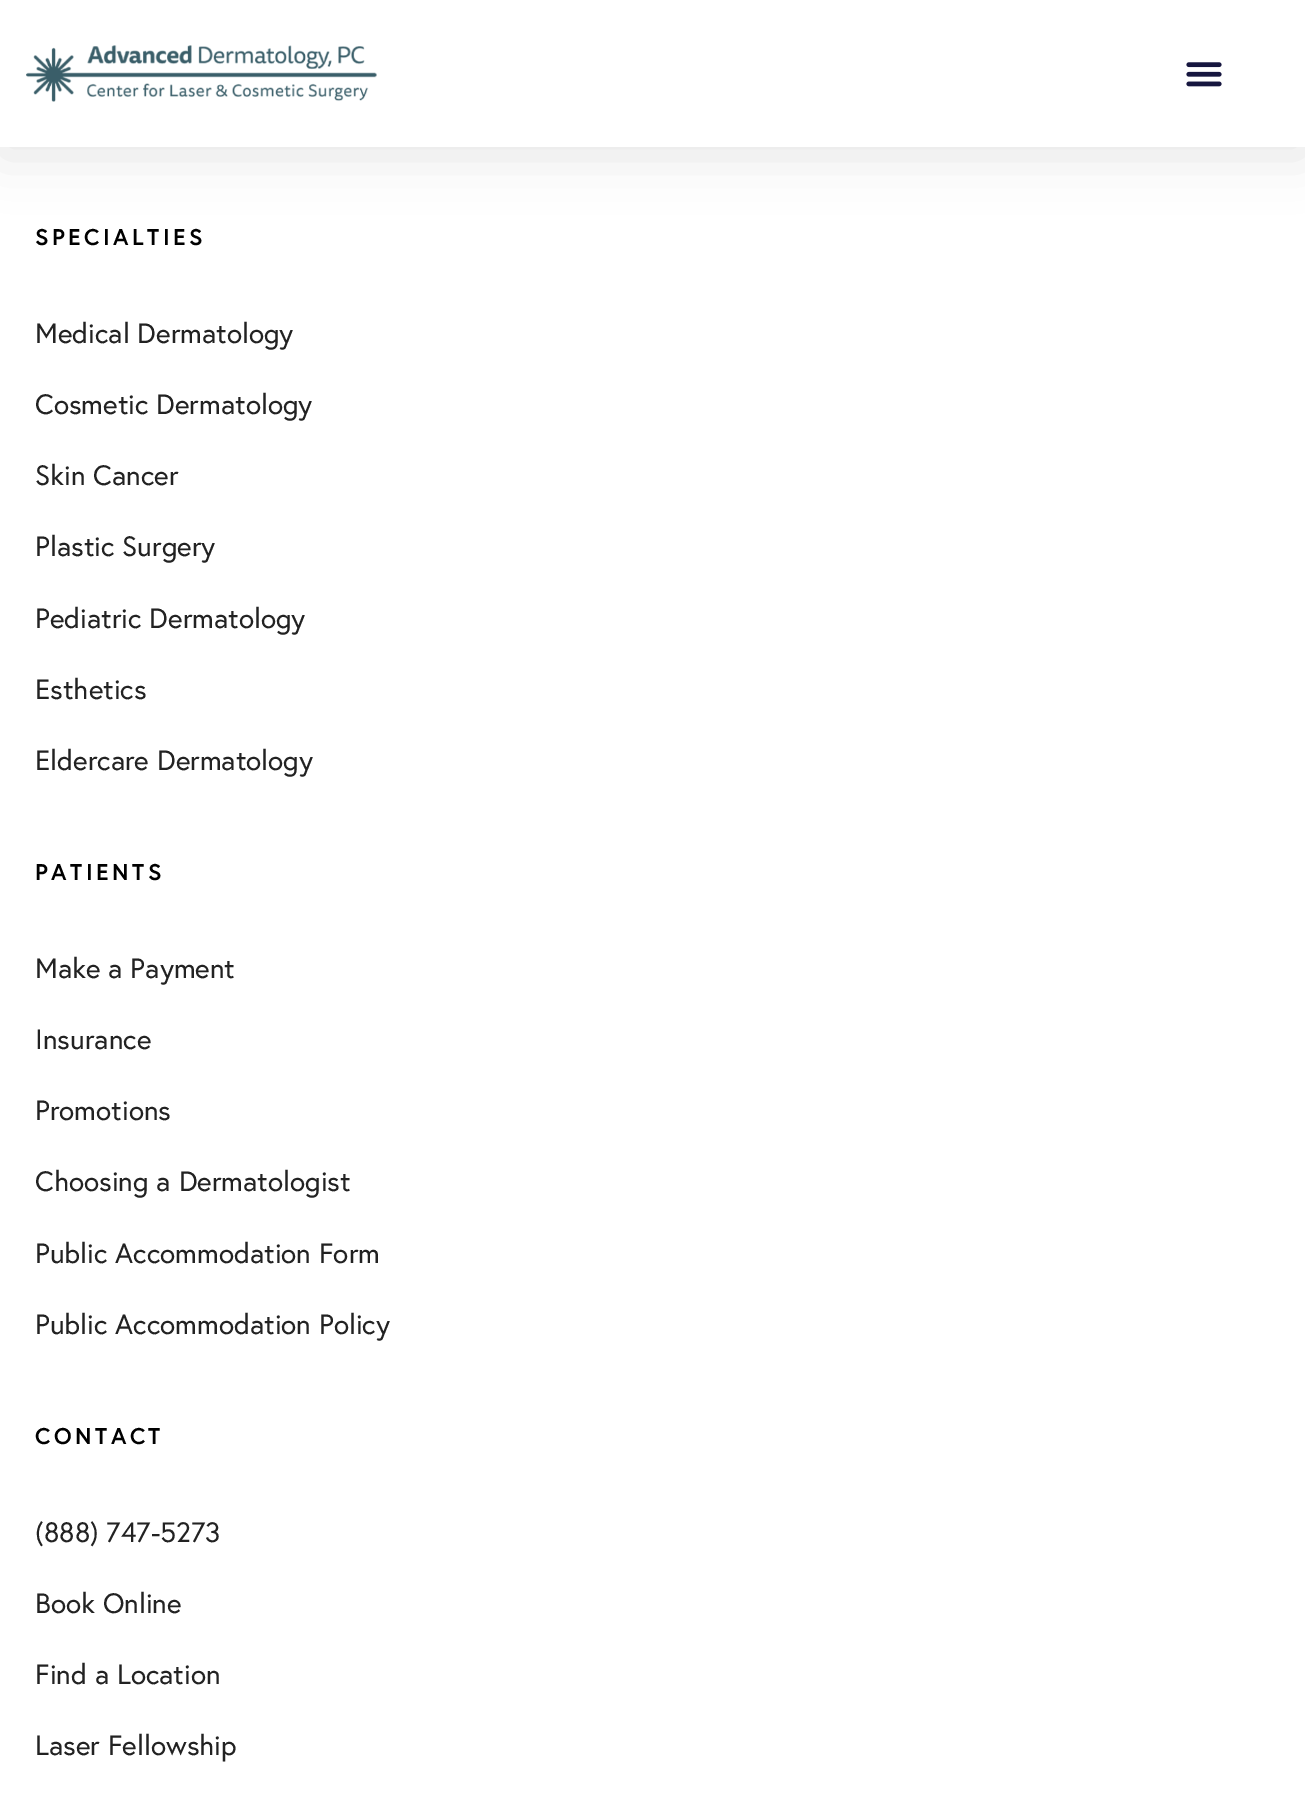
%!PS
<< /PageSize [1305 1813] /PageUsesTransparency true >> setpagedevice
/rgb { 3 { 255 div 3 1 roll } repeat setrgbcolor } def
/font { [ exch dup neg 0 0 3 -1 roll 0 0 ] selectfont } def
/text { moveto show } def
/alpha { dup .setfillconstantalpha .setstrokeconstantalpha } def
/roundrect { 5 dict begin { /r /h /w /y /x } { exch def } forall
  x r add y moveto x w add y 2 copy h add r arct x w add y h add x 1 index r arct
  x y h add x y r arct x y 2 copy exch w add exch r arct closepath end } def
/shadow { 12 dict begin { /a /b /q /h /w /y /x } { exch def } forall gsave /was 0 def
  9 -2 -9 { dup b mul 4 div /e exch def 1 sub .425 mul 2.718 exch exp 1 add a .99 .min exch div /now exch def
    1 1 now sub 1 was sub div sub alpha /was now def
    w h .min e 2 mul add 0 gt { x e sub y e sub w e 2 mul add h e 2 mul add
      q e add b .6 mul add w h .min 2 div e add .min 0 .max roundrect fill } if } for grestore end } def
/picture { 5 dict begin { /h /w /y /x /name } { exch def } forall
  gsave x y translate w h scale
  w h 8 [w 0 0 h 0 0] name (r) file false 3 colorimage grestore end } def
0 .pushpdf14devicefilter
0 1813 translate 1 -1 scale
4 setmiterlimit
255 255 255 rgb
0 0 1305 1813 rectfill
0 0 0 rgb
0 9 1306 147 0 26 0.1 shadow
255 255 255 rgb
0 0 1305 147 rectfill
(img_01.rgb) 26 45 351 57 picture
(img_02.rgb) 1186 62 36 25 picture
/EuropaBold-Bold 22.75 font
0 0 0 rgb
35 245 moveto 3.5 0 (SPECIALTIES) ashow
/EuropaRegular-Regular 28 font
34 34 34 rgb
(Medical Dermatology) 35 343 text
(Cosmetic Dermatology) 35 414 text
(Skin Cancer) 35 485 text
(Plastic Surgery) 35 556 text
(Pediatric Dermatology) 35 628 text
(Esthetics) 35 699 text
(Eldercare Dermatology) 35 770 text
/EuropaBold-Bold 22.75 font
0 0 0 rgb
35 880 moveto 3.5 0 (PATIENTS) ashow
/EuropaRegular-Regular 28 font
34 34 34 rgb
(Make a Payment) 35 978 text
(Insurance) 35 1049 text
(Promotions) 35 1120 text
(Choosing a Dermatologist) 35 1191 text
(Public Accommodation Form) 35 1263 text
(Public Accommodation Policy) 35 1334 text
/EuropaBold-Bold 22.75 font
0 0 0 rgb
35 1444 moveto 3.5 0 (CONTACT) ashow
/EuropaRegular-Regular 28 font
34 34 34 rgb
(\(888\) 747-5273) 35 1542 text
(Book Online) 35 1613 text
(Find a Location) 35 1684 text
(Laser Fellowship) 35 1755 text
.poppdf14devicefilter showpage
